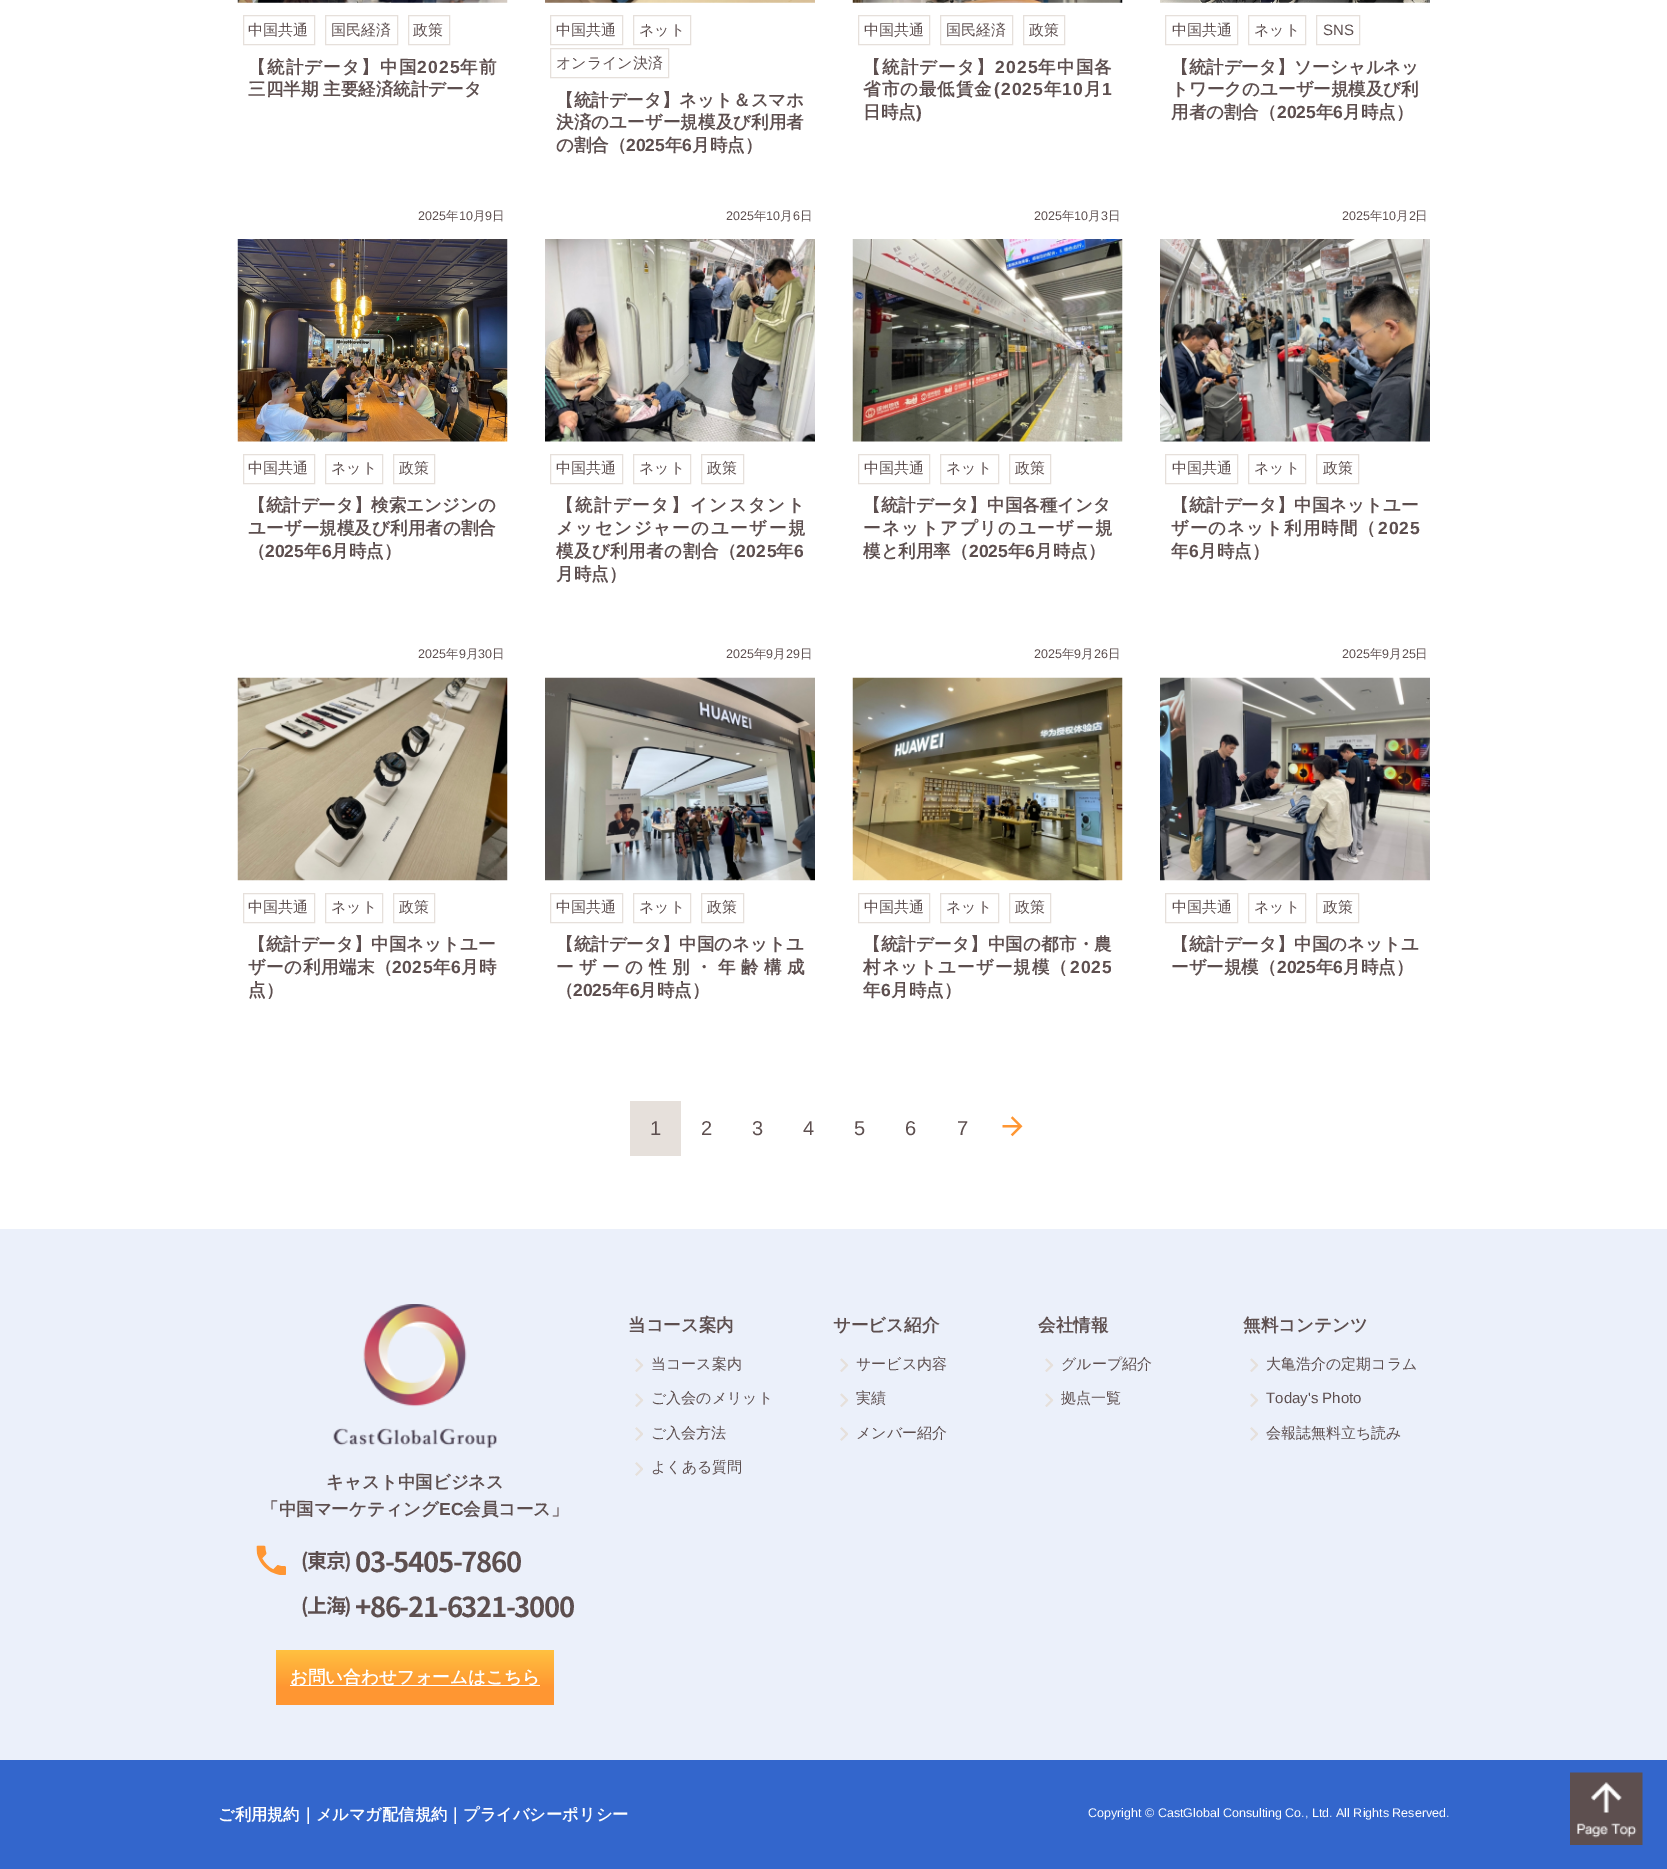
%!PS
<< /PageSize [1667 1869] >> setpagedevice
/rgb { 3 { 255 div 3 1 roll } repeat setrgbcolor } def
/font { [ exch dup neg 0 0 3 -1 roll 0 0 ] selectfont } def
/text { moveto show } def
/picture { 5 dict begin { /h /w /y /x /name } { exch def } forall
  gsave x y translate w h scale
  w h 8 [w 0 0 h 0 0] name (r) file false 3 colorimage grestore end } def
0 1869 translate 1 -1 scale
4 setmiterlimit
255 255 255 rgb
0 0 1667 1869 rectfill
(img_01.rgb) 237 0 271 3 picture
230 224 219 rgb
243.5 15.5 71 29 rectstroke
325.5 15.5 72 29 rectstroke
408.5 15.5 41 29 rectstroke
(img_02.rgb) 545 0 270 3 picture
550.5 15.5 72 29 rectstroke
633.5 15.5 57 29 rectstroke
550.5 48.5 118 29 rectstroke
(img_03.rgb) 852 0 271 3 picture
858.5 15.5 71 29 rectstroke
940.5 15.5 72 29 rectstroke
1023.5 15.5 41 29 rectstroke
(img_04.rgb) 1160 0 270 3 picture
1165.5 15.5 72 29 rectstroke
1248.5 15.5 57 29 rectstroke
1316.5 15.5 43 29 rectstroke
(img_05.rgb) 237 239 271 203 picture
243.5 454.5 71 29 rectstroke
325.5 454.5 57 29 rectstroke
393.5 454.5 41 29 rectstroke
(img_06.rgb) 545 239 270 203 picture
550.5 454.5 72 29 rectstroke
633.5 454.5 57 29 rectstroke
701.5 454.5 42 29 rectstroke
(img_07.rgb) 852 239 271 203 picture
858.5 454.5 71 29 rectstroke
940.5 454.5 58 29 rectstroke
1009.5 454.5 41 29 rectstroke
(img_08.rgb) 1160 239 270 203 picture
1165.5 454.5 72 29 rectstroke
1248.5 454.5 57 29 rectstroke
1316.5 454.5 42 29 rectstroke
(img_09.rgb) 237 677 271 204 picture
243.5 893.5 71 29 rectstroke
325.5 893.5 57 29 rectstroke
393.5 893.5 41 29 rectstroke
(img_10.rgb) 545 677 270 204 picture
550.5 893.5 72 29 rectstroke
633.5 893.5 57 29 rectstroke
701.5 893.5 42 29 rectstroke
(img_11.rgb) 852 677 271 204 picture
858.5 893.5 71 29 rectstroke
940.5 893.5 58 29 rectstroke
1009.5 893.5 41 29 rectstroke
(img_12.rgb) 1160 677 270 204 picture
1165.5 893.5 72 29 rectstroke
1248.5 893.5 57 29 rectstroke
1316.5 893.5 42 29 rectstroke
630 1101 51 55 rectfill
(img_13.rgb) 1002 1116 21 21 picture
235 240 250 rgb
0 1229 1667 531 rectfill
(img_14.rgb) 635 1358 9 14 picture
(img_14.rgb) 635 1393 9 14 picture
(img_15.rgb) 635 1427 8 14 picture
(img_15.rgb) 635 1462 8 14 picture
(img_14.rgb) 840 1358 9 14 picture
(img_14.rgb) 840 1393 9 14 picture
(img_15.rgb) 840 1427 8 14 picture
(img_14.rgb) 1045 1358 9 14 picture
(img_14.rgb) 1045 1393 9 14 picture
(img_14.rgb) 1250 1358 9 14 picture
(img_14.rgb) 1250 1393 9 14 picture
(img_15.rgb) 1250 1427 8 14 picture
(img_16.rgb) 333 1304 164 144 picture
(img_17.rgb) 256 1545 30 30 picture
gsave 276 1650 moveto 278 0 rlineto 0 55 rlineto -278 0 rlineto closepath clip newpath
<< /ShadingType 2 /ColorSpace /DeviceRGB /Coords [415 1650 415 1705] /Extend [true true] /Function << /FunctionType 3 /Domain [0 1] /Functions [<< /FunctionType 2 /Domain [0 1] /C0 [1 0.757 0.251] /C1 [1 0.588 0.196] /N 1 >> << /FunctionType 2 /Domain [0 1] /C0 [1 0.588 0.196] /C1 [1 0.588 0.196] /N 1 >>] /Bounds [0.69] /Encode [0 1 0 1] >> >> shfill grestore
255 255 255 rgb
290 1685 250 1 rectfill
51 102 204 rgb
0 1760 1667 109 rectfill
(img_18.rgb) 1570 1772 73 73 picture
/WenQuanYiZenHei-Medium 15 font
93 79 79 rgb
(中国共通) 248 35 text
(国民経済) 331 35 text
(政策) 413 35 text
/WenQuanYiZenHei-Bold 17.5 font
248 73 moveto 1.25 0 (【統計データ】中国) ashow
/LiberationSans-Bold 17.5 font
417 73 moveto 1.25 0 (2025) ashow
/WenQuanYiZenHei-Bold 17.5 font
460 73 moveto 1.25 0 (年前) ashow
(三四半期 主要経済統計データ) 248 95 text
/WenQuanYiZenHei-Medium 15 font
(中国共通) 556 35 text
(ネット) 639 35 text
(オンライン決済) 556 68 text
/WenQuanYiZenHei-Bold 17.5 font
(【統計データ】ネット＆スマホ) 556 106 text
556 128 moveto 0.1 0 (決済のユーザー規模及び利用者) ashow
(の割合（) 556 151 text
/LiberationSans-Bold 17.5 font
(2025) 626 151 text
/WenQuanYiZenHei-Bold 17.5 font
(年) 665 151 text
/LiberationSans-Bold 17.5 font
(6) 682 151 text
/WenQuanYiZenHei-Bold 17.5 font
(月時点）) 692 151 text
/WenQuanYiZenHei-Medium 15 font
(中国共通) 864 35 text
(国民経済) 946 35 text
(政策) 1029 35 text
/WenQuanYiZenHei-Bold 17.5 font
863 73 moveto 1.25 0 (【統計データ】) ashow
/LiberationSans-Bold 17.5 font
995 73 moveto 1.25 0 (2025) ashow
/WenQuanYiZenHei-Bold 17.5 font
1038 73 moveto 1.25 0 (年中国各) ashow
863 95 moveto 1 0 (省市の最低賃金) ashow
/LiberationSans-Bold 17.5 font
994 95 moveto 1 0 (\(2025) ashow
/WenQuanYiZenHei-Bold 17.5 font
1044 95 moveto 1 0 (年) ashow
/LiberationSans-Bold 17.5 font
1062 95 moveto 1 0 (10) ashow
/WenQuanYiZenHei-Bold 17.5 font
1084 95 moveto 1 0 (月) ashow
/LiberationSans-Bold 17.5 font
1102 95 moveto 1 0 (1) ashow
/WenQuanYiZenHei-Bold 17.5 font
(日時点) 863 118 text
/LiberationSans-Bold 17.5 font
(\)) 916 118 text
/WenQuanYiZenHei-Medium 15 font
(中国共通) 1172 35 text
(ネット) 1254 35 text
/LiberationSans-Regular 15 font
(SNS) 1323 35 text
/WenQuanYiZenHei-Bold 17.5 font
(【統計データ】ソーシャルネッ) 1171 73 text
(トワークのユーザー規模及び利) 1171 95 text
(用者の割合（) 1171 118 text
/LiberationSans-Bold 17.5 font
(2025) 1277 118 text
/WenQuanYiZenHei-Bold 17.5 font
(年) 1316 118 text
/LiberationSans-Bold 17.5 font
(6) 1333 118 text
/WenQuanYiZenHei-Bold 17.5 font
(月時点）) 1343 118 text
/LiberationSans-Regular 12.5 font
(2025) 418 220 text
/WenQuanYiZenHei-Medium 12.5 font
(年) 446 220 text
/LiberationSans-Regular 12.5 font
(10) 459 220 text
/WenQuanYiZenHei-Medium 12.5 font
(月) 473 220 text
/LiberationSans-Regular 12.5 font
(9) 485 220 text
/WenQuanYiZenHei-Medium 12.5 font
(日) 492 220 text
/WenQuanYiZenHei-Medium 15 font
(中国共通) 248 473 text
(ネット) 331 473 text
(政策) 399 473 text
/WenQuanYiZenHei-Bold 17.5 font
(【統計データ】検索エンジンの) 248 511 text
248 534 moveto 0.1 0 (ユーザー規模及び利用者の割合) ashow
(（) 248 557 text
/LiberationSans-Bold 17.5 font
(2025) 265 557 text
/WenQuanYiZenHei-Bold 17.5 font
(年) 304 557 text
/LiberationSans-Bold 17.5 font
(6) 322 557 text
/WenQuanYiZenHei-Bold 17.5 font
(月時点）) 331 557 text
/LiberationSans-Regular 12.5 font
(2025) 726 220 text
/WenQuanYiZenHei-Medium 12.5 font
(年) 754 220 text
/LiberationSans-Regular 12.5 font
(10) 766 220 text
/WenQuanYiZenHei-Medium 12.5 font
(月) 780 220 text
/LiberationSans-Regular 12.5 font
(6) 793 220 text
/WenQuanYiZenHei-Medium 12.5 font
(日) 800 220 text
/WenQuanYiZenHei-Medium 15 font
(中国共通) 556 473 text
(ネット) 639 473 text
(政策) 707 473 text
/WenQuanYiZenHei-Bold 17.5 font
556 511 moveto 1.5 0 (【統計データ】インスタント) ashow
556 534 moveto 1.5 0 (メッセンジャーのユーザー規) ashow
556 557 moveto 0.5 0 (模及び利用者の割合（) ashow
/LiberationSans-Bold 17.5 font
736 557 moveto 0.5 0 (2025) ashow
/WenQuanYiZenHei-Bold 17.5 font
776 557 moveto 0.5 0 (年) ashow
/LiberationSans-Bold 17.5 font
794 557 moveto 0.5 0 (6) ashow
/WenQuanYiZenHei-Bold 17.5 font
(月時点）) 556 580 text
/LiberationSans-Regular 12.5 font
(2025) 1034 220 text
/WenQuanYiZenHei-Medium 12.5 font
(年) 1062 220 text
/LiberationSans-Regular 12.5 font
(10) 1074 220 text
/WenQuanYiZenHei-Medium 12.5 font
(月) 1088 220 text
/LiberationSans-Regular 12.5 font
(3) 1101 220 text
/WenQuanYiZenHei-Medium 12.5 font
(日) 1108 220 text
/WenQuanYiZenHei-Medium 15 font
(中国共通) 864 473 text
(ネット) 946 473 text
(政策) 1015 473 text
/WenQuanYiZenHei-Bold 17.5 font
863 511 moveto 0.1 0 (【統計データ】中国各種インタ) ashow
863 534 moveto 1.5 0 (ーネットアプリのユーザー規) ashow
(模と利用率（) 863 557 text
/LiberationSans-Bold 17.5 font
(2025) 969 557 text
/WenQuanYiZenHei-Bold 17.5 font
(年) 1008 557 text
/LiberationSans-Bold 17.5 font
(6) 1025 557 text
/WenQuanYiZenHei-Bold 17.5 font
(月時点）) 1035 557 text
/LiberationSans-Regular 12.5 font
(2025) 1342 220 text
/WenQuanYiZenHei-Medium 12.5 font
(年) 1370 220 text
/LiberationSans-Regular 12.5 font
(10) 1382 220 text
/WenQuanYiZenHei-Medium 12.5 font
(月) 1396 220 text
/LiberationSans-Regular 12.5 font
(2) 1409 220 text
/WenQuanYiZenHei-Medium 12.5 font
(日) 1415 220 text
/WenQuanYiZenHei-Medium 15 font
(中国共通) 1172 473 text
(ネット) 1254 473 text
(政策) 1323 473 text
/WenQuanYiZenHei-Bold 17.5 font
(【統計データ】中国ネットユー) 1171 511 text
1171 534 moveto 1 0 (ザーのネット利用時間（) ashow
/LiberationSans-Bold 17.5 font
1378 534 moveto 1 0 (2025) ashow
/WenQuanYiZenHei-Bold 17.5 font
(年) 1171 557 text
/LiberationSans-Bold 17.5 font
(6) 1189 557 text
/WenQuanYiZenHei-Bold 17.5 font
(月時点）) 1199 557 text
/LiberationSans-Regular 12.5 font
(2025) 418 658 text
/WenQuanYiZenHei-Medium 12.5 font
(年) 446 658 text
/LiberationSans-Regular 12.5 font
(9) 459 658 text
/WenQuanYiZenHei-Medium 12.5 font
(月) 466 658 text
/LiberationSans-Regular 12.5 font
(30) 478 658 text
/WenQuanYiZenHei-Medium 12.5 font
(日) 492 658 text
/WenQuanYiZenHei-Medium 15 font
(中国共通) 248 912 text
(ネット) 331 912 text
(政策) 399 912 text
/WenQuanYiZenHei-Bold 17.5 font
(【統計データ】中国ネットユー) 248 950 text
248 973 moveto 0.5 0 (ザーの利用端末（) ashow
/LiberationSans-Bold 17.5 font
392 973 moveto 0.5 0 (2025) ashow
/WenQuanYiZenHei-Bold 17.5 font
433 973 moveto 0.5 0 (年) ashow
/LiberationSans-Bold 17.5 font
451 973 moveto 0.5 0 (6) ashow
/WenQuanYiZenHei-Bold 17.5 font
461 973 moveto 0.5 0 (月時) ashow
(点）) 248 996 text
/LiberationSans-Regular 12.5 font
(2025) 726 658 text
/WenQuanYiZenHei-Medium 12.5 font
(年) 754 658 text
/LiberationSans-Regular 12.5 font
(9) 766 658 text
/WenQuanYiZenHei-Medium 12.5 font
(月) 773 658 text
/LiberationSans-Regular 12.5 font
(29) 786 658 text
/WenQuanYiZenHei-Medium 12.5 font
(日) 800 658 text
/WenQuanYiZenHei-Medium 15 font
(中国共通) 556 912 text
(ネット) 639 912 text
(政策) 707 912 text
/WenQuanYiZenHei-Bold 17.5 font
(【統計データ】中国のネットユ) 556 950 text
556 973 moveto 5.5 0 (ーザーの性別・年齢構成) ashow
(（) 556 996 text
/LiberationSans-Bold 17.5 font
(2025) 573 996 text
/WenQuanYiZenHei-Bold 17.5 font
(年) 612 996 text
/LiberationSans-Bold 17.5 font
(6) 630 996 text
/WenQuanYiZenHei-Bold 17.5 font
(月時点）) 639 996 text
/LiberationSans-Regular 12.5 font
(2025) 1034 658 text
/WenQuanYiZenHei-Medium 12.5 font
(年) 1062 658 text
/LiberationSans-Regular 12.5 font
(9) 1074 658 text
/WenQuanYiZenHei-Medium 12.5 font
(月) 1081 658 text
/LiberationSans-Regular 12.5 font
(26) 1094 658 text
/WenQuanYiZenHei-Medium 12.5 font
(日) 1108 658 text
/WenQuanYiZenHei-Medium 15 font
(中国共通) 864 912 text
(ネット) 946 912 text
(政策) 1015 912 text
/WenQuanYiZenHei-Bold 17.5 font
863 950 moveto 0.2 0 (【統計データ】中国の都市・農) ashow
863 973 moveto 1 0 (村ネットユーザー規模（) ashow
gsave
864 923 247 88 rectclip
/LiberationSans-Bold 17.5 font
1070 973 moveto 1 0 (2025) ashow
grestore
(年) 863 996 text
/LiberationSans-Bold 17.5 font
(6) 881 996 text
/WenQuanYiZenHei-Bold 17.5 font
(月時点）) 891 996 text
/LiberationSans-Regular 12.5 font
(2025) 1342 658 text
/WenQuanYiZenHei-Medium 12.5 font
(年) 1370 658 text
/LiberationSans-Regular 12.5 font
(9) 1382 658 text
/WenQuanYiZenHei-Medium 12.5 font
(月) 1389 658 text
/LiberationSans-Regular 12.5 font
(25) 1402 658 text
/WenQuanYiZenHei-Medium 12.5 font
(日) 1415 658 text
/WenQuanYiZenHei-Medium 15 font
(中国共通) 1172 912 text
(ネット) 1254 912 text
(政策) 1323 912 text
/WenQuanYiZenHei-Bold 17.5 font
(【統計データ】中国のネットユ) 1171 950 text
(ーザー規模（) 1171 973 text
/LiberationSans-Bold 17.5 font
(2025) 1277 973 text
/WenQuanYiZenHei-Bold 17.5 font
(年) 1316 973 text
/LiberationSans-Bold 17.5 font
(6) 1333 973 text
/WenQuanYiZenHei-Bold 17.5 font
(月時点）) 1343 973 text
/LiberationSans-Regular 20 font
(1) 650 1135 text
(2) 701 1135 text
(3) 752 1135 text
(4) 803 1135 text
(5) 854 1135 text
(6) 905 1135 text
(7) 957 1135 text
/WenQuanYiZenHei-Bold 17.5 font
(当コース案内) 628 1331 text
/WenQuanYiZenHei-Medium 15 font
(当コース案内) 651 1369 text
(ご入会のメリット) 651 1403 text
(ご入会方法) 651 1438 text
(よくある質問) 651 1472 text
/WenQuanYiZenHei-Bold 17.5 font
(サービス紹介) 833 1331 text
/WenQuanYiZenHei-Medium 15 font
(サービス内容) 856 1369 text
(実績) 856 1403 text
(メンバー紹介) 856 1438 text
/WenQuanYiZenHei-Bold 17.5 font
(会社情報) 1038 1331 text
/WenQuanYiZenHei-Medium 15 font
(グループ紹介) 1061 1369 text
(拠点一覧) 1061 1403 text
/WenQuanYiZenHei-Bold 17.5 font
(無料コンテンツ) 1243 1331 text
/WenQuanYiZenHei-Medium 15 font
(大亀浩介の定期コラム) 1266 1369 text
/LiberationSans-Regular 15 font
(Today's Photo) 1266 1403 text
/WenQuanYiZenHei-Medium 15 font
(会報誌無料立ち読み) 1266 1438 text
/WenQuanYiZenHei-Bold 17.5 font
(キャスト中国ビジネス) 326 1488 text
(「中国マーケティング) 261 1515 text
/LiberationSans-Bold 17.5 font
(EC) 439 1515 text
/WenQuanYiZenHei-Bold 17.5 font
(会員コース」) 463 1515 text
/NotoSansJP-Bold 20 font
301 1568 moveto -1.4 0 (\(東京\)) ashow
/NotoSansJP-Bold 27.5 font
355 1572 moveto -1.4 0 (03-5405-7860) ashow
/NotoSansJP-Bold 20 font
301 1613 moveto -1.4 0 (\(上海\)) ashow
/NotoSansJP-Bold 27.5 font
355 1617 moveto -1.4 0 (+86-21-6321-3000) ashow
/WenQuanYiZenHei-Bold 17.5 font
255 255 255 rgb
(お問い合わせフォームはこちら) 290 1683 text
/WenQuanYiZenHei-Bold 16.25 font
(ご利用規約｜メルマガ配信規約｜プライバシーポリシー) 218 1820 text
/LiberationSans-Regular 12.5 font
(Copyright © CastGlobal Consulting Co., Ltd. All Rights Reserved.) 1088 1817 text
showpage
